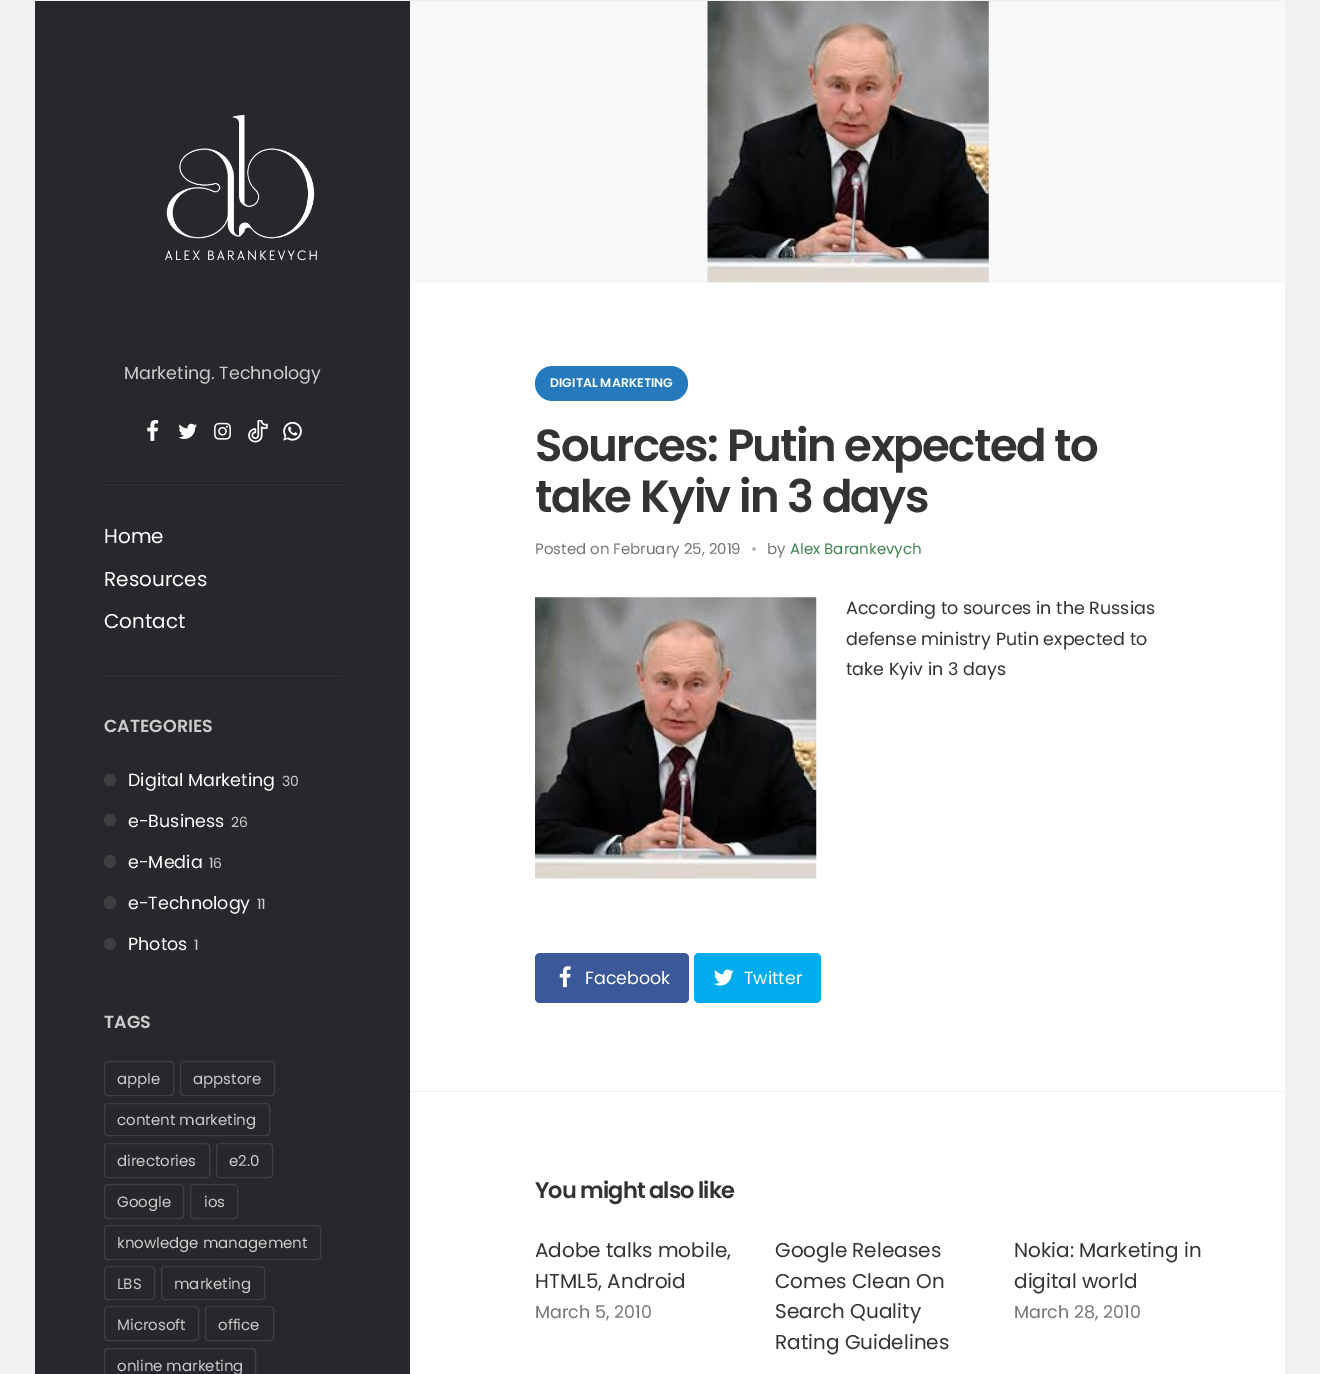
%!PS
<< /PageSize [1320 1374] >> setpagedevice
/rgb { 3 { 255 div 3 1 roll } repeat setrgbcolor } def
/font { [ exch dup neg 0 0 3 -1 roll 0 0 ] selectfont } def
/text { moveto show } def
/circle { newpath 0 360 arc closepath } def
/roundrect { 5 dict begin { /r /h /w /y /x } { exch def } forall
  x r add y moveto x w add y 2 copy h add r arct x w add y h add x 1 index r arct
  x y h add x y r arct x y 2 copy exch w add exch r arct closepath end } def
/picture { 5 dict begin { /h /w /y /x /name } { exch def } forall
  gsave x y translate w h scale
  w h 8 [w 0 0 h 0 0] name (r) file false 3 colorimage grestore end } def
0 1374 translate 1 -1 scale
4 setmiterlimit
241 241 241 rgb
0 0 1320 1374 rectfill
39 40 43 rgb
35 1 375 1373 rectfill
(img_01.rgb) 165 114 152 147 picture
(img_02.rgb) 147 420 12 21 picture
(img_03.rgb) 178 423 19 16 picture
(img_04.rgb) 214 422 17 18 picture
(img_05.rgb) 248 420 20 23 picture
(img_06.rgb) 283 421 19 20 picture
29 30 33 rgb
104 483 237 1 rectfill
52 53 56 rgb
104 484 237 1 rectfill
29 30 33 rgb
104 674 237 1 rectfill
52 53 56 rgb
104 675 237 1 rectfill
61 62 64 rgb
110 780 6 circle fill
110 820 6 circle fill
104 855 12 13 6 roundrect fill
104 896 12 13 6 roundrect fill
110 944 6 circle fill
62 64 68 rgb
104.5 1061.5 69 34 3.5 roundrect stroke
180.5 1061.5 94 34 3.5 roundrect stroke
104.5 1103.5 165 32 3.5 roundrect stroke
104.5 1143.5 105 34 3.5 roundrect stroke
216.5 1143.5 56 34 3.5 roundrect stroke
104.5 1184.5 79 34 3.5 roundrect stroke
190.5 1184.5 47 34 3.5 roundrect stroke
104.5 1225.5 216 34 3.5 roundrect stroke
104.5 1266.5 50 33 3.5 roundrect stroke
161.5 1266.5 103 33 3.5 roundrect stroke
104.5 1306.5 94 34 3.5 roundrect stroke
205.5 1306.5 68 34 3.5 roundrect stroke
104.5 1348.5 151 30 3.5 roundrect stroke
255 255 255 rgb
410 283 875 1091 rectfill
248 248 248 rgb
410 1 875 282 rectfill
(img_07.rgb) 707 1 282 282 picture
36 122 188 rgb
535 366 153 35 17.5 roundrect fill
(img_08.rgb) 535 597 282 282 picture
59 89 152 rgb
535 953 154 50 5 roundrect fill
(img_09.rgb) 559 966 12 22 picture
0 172 237 rgb
694 953 127 50 5 roundrect fill
(img_10.rgb) 714 969 20 17 picture
241 241 241 rgb
410 1091 875 1 rectfill
/Poppins-Regular 17.5 font
204 204 204 rgb
(Marketing. Technology) 124 379 text
/Poppins-Regular 20 font
255 255 255 rgb
(Home) 104 543 text
(Resources) 104 586 text
(Contact) 104 628 text
/Poppins-SemiBold 17.5 font
204 204 204 rgb
(CATEGORIES) 104 732 text
/Poppins-Regular 17.5 font
255 255 255 rgb
(Digital Marketing) 128 786 text
/Poppins-Regular 14 font
204 204 204 rgb
(30) 282 786 text
/Poppins-Regular 17.5 font
255 255 255 rgb
(e-Business) 128 827 text
/Poppins-Regular 14 font
204 204 204 rgb
(26) 231 827 text
/Poppins-Regular 17.5 font
255 255 255 rgb
(e-Media) 128 868 text
/Poppins-Regular 14 font
204 204 204 rgb
(16) 209 868 text
/Poppins-Regular 17.5 font
255 255 255 rgb
(e-Technology) 128 909 text
/Poppins-Regular 14 font
204 204 204 rgb
(11) 257 909 text
/Poppins-Regular 17.5 font
255 255 255 rgb
(Photos) 128 950 text
/Poppins-Regular 14 font
204 204 204 rgb
(1) 194 950 text
/Poppins-SemiBold 17.5 font
(TAGS) 104 1028 text
/Poppins-Regular 15 font
(apple) 117 1084 text
(appstore) 193 1084 text
(content marketing) 117 1125 text
(directories) 117 1166 text
(e2.0) 229 1166 text
(Google) 117 1207 text
(ios) 204 1207 text
(knowledge management) 117 1248 text
(LBS) 117 1289 text
(marketing) 174 1289 text
(Microsoft) 117 1330 text
(office) 218 1330 text
(online marketing) 117 1371 text
/Poppins-SemiBold 12.5 font
255 255 255 rgb
(DIGITAL MARKETING) 550 387 text
/Poppins-SemiBold 45 font
51 51 51 rgb
535 461 moveto -1.6 0 (Sources: Putin expected to) ashow
535 512 moveto -1.6 0 (take Kyiv in 3 days) ashow
/Poppins-Regular 15 font
118 118 118 rgb
(Posted on February 25, 2019) 535 554 text
173 173 173 rgb
(•) 751 554 text
118 118 118 rgb
(by) 767 554 text
64 130 77 rgb
(Alex Barankevych) 790 554 text
/Poppins-Regular 17.5 font
51 51 51 rgb
(According to sources in the Russias) 846 614 text
(defense ministry Putin expected to) 846 645 text
(take Kyiv in 3 days) 846 675 text
255 255 255 rgb
(Facebook) 585 984 text
(Twitter) 744 984 text
/Poppins-SemiBold 22.5 font
51 51 51 rgb
535 1198 moveto -0.9 0 (You might also like) ashow
/Poppins-Regular 20 font
(Adobe talks mobile,) 535 1257 text
(HTML5, Android) 535 1288 text
/Poppins-Regular 17.5 font
118 118 118 rgb
(March 5, 2010) 535 1318 text
/Poppins-Regular 20 font
51 51 51 rgb
(Google Releases) 775 1257 text
(Comes Clean On) 775 1288 text
(Search Quality) 775 1318 text
(Rating Guidelines) 775 1349 text
(Nokia: Marketing in) 1014 1257 text
(digital world) 1014 1288 text
/Poppins-Regular 17.5 font
118 118 118 rgb
(March 28, 2010) 1014 1318 text
showpage
